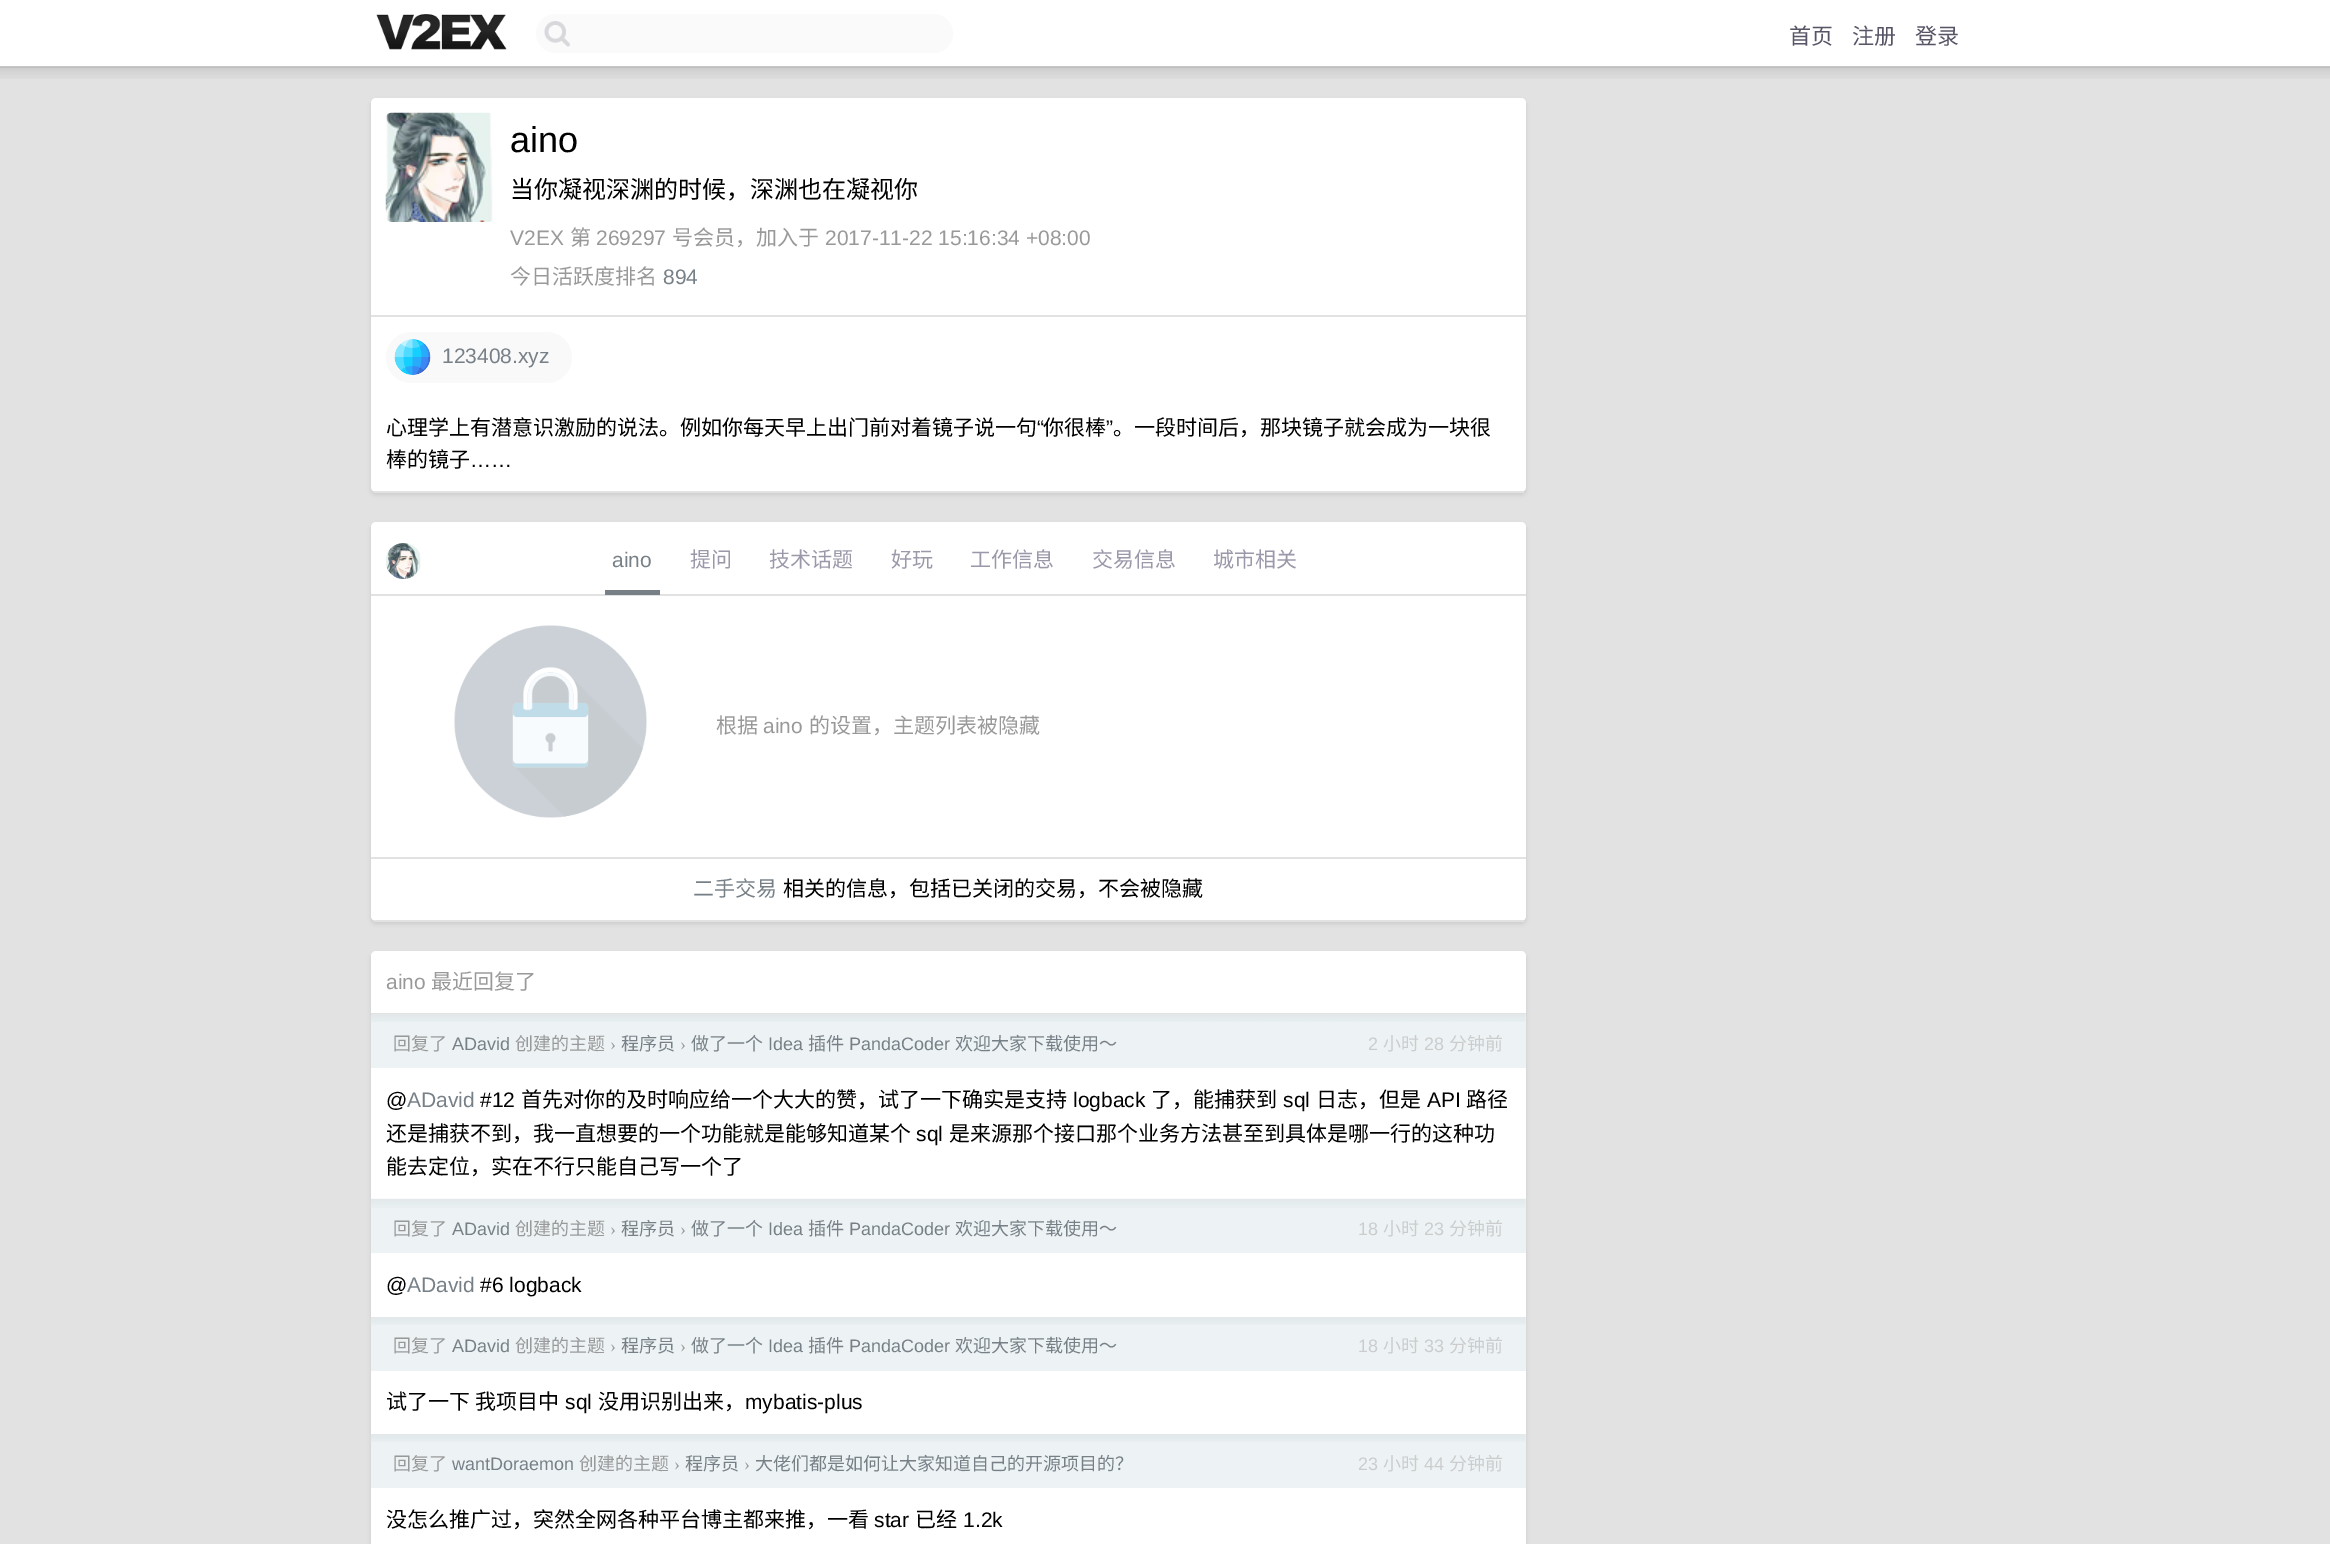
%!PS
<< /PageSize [2330 1544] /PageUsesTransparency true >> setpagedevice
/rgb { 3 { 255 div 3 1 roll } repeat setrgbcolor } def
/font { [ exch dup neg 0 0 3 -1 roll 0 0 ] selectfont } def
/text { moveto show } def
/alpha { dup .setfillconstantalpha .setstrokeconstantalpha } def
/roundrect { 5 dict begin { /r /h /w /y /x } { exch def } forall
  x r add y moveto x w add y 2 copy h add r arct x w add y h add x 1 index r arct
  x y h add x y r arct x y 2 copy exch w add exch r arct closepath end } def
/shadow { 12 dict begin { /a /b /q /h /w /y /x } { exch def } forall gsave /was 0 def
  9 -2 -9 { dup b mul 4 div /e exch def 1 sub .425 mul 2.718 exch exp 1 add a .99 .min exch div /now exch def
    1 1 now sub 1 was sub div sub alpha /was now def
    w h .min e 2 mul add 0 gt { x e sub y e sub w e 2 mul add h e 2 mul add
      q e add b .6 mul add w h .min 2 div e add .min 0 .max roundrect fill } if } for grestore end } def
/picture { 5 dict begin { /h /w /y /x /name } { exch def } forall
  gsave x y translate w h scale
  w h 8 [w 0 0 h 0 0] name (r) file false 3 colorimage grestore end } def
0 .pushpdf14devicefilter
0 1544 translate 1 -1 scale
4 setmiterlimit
255 255 255 rgb
0 0 2330 1544 rectfill
199 199 199 rgb
0 66 2330 2 rectfill
(img_01.rgb) 376 14 131 36 picture
250 250 250 rgb
536 14 417 39 19.5 roundrect fill
(img_02.rgb) 544 21 26 26 picture
226 226 226 rgb
0 68 2330 1476 rectfill
(img_03.rgb) 0 67 2330 12 picture
0 0 0 rgb
371 101 1155 394 5 2 0.1 shadow
255 255 255 rgb
371 98 1155 394 5 roundrect fill
226 226 226 rgb
374 491 1150 2 rectfill
371 315 1155 2 rectfill
(img_04.rgb) 385 112 108 110 picture
249 249 249 rgb
386 332 186 51 25.5 roundrect fill
(img_05.rgb) 394 339 37 36 picture
0 0 0 rgb
371 525 1155 399 5 2 0.1 shadow
255 255 255 rgb
371 522 1155 399 5 roundrect fill
226 226 226 rgb
374 920 1150 2 rectfill
371 594 1155 2 rectfill
(img_06.rgb) 386 543 35 36 picture
119 128 135 rgb
605 590 55 5 rectfill
226 226 226 rgb
371 857 1155 2 rectfill
(img_07.rgb) 454 625 193 193 picture
0 0 0 rgb
371 954 1155 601 5 2 0.1 shadow
255 255 255 rgb
371 951 1155 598 5 roundrect fill
226 226 226 rgb
371 1013 1155 1 rectfill
237 243 245 rgb
371 1014 1155 54 rectfill
(img_08.rgb) 370 1014 1156 8 picture
371 1199 1155 54 rectfill
(img_09.rgb) 370 1198 1156 10 picture
371 1317 1155 54 rectfill
(img_10.rgb) 370 1317 1156 8 picture
371 1434 1155 54 rectfill
(img_11.rgb) 370 1434 1156 8 picture
/NotoSansCJKSC-Regular 22 font
85 85 102 rgb
(首页) 1789 44 text
(注册) 1852 44 text
(登录) 1915 44 text
/LiberationSans-Regular 36 font
0 0 0 rgb
(aino) 510 152 text
/NotoSansCJKSC-Regular 24 font
(当你凝视深渊的时候，深渊也在凝视你) 510 198 text
/LiberationSans-Regular 21 font
153 153 153 rgb
(V2EX) 510 245 text
/NotoSansCJKSC-Regular 21 font
(第) 570 245 text
/LiberationSans-Regular 21 font
(269297) 596 245 text
/NotoSansCJKSC-Regular 21 font
(号会员，加入于) 672 245 text
/LiberationSans-Regular 21 font
(2017-11-22 15:16:34 +08:00) 825 245 text
/NotoSansCJKSC-Regular 21 font
(今日活跃度排名) 510 284 text
/LiberationSans-Regular 21 font
119 128 135 rgb
(894) 663 284 text
(123408.xyz) 442 363 text
/NotoSansCJKSC-Regular 21 font
0 0 0 rgb
(心理学上有潜意识激励的说法。例如你每天早上出门前对着镜子说一句) 386 435 text
/LiberationSans-Regular 21 font
(“) 1037 435 text
/NotoSansCJKSC-Regular 21 font
(你很棒) 1043 435 text
/LiberationSans-Regular 21 font
(”) 1106 435 text
/NotoSansCJKSC-Regular 21 font
(。一段时间后，那块镜子就会成为一块很) 1113 435 text
(棒的镜子) 386 467 text
/LiberationSans-Regular 21 font
(……) 470 467 text
119 128 135 rgb
(aino) 612 567 text
/NotoSansCJKSC-Regular 21 font
153 153 170 rgb
(提问) 690 567 text
(技术话题) 769 567 text
(好玩) 891 567 text
(工作信息) 970 567 text
(交易信息) 1092 567 text
(城市相关) 1213 567 text
153 153 153 rgb
(根据) 716 733 text
/LiberationSans-Regular 21 font
(aino) 763 733 text
/NotoSansCJKSC-Regular 21 font
(的设置，主题列表被隐藏) 809 733 text
119 128 135 rgb
(二手交易) 693 896 text
0 0 0 rgb
(相关的信息，包括已关闭的交易，不会被隐藏) 783 896 text
/LiberationSans-Regular 21 font
153 153 153 rgb
(aino) 386 989 text
/NotoSansCJKSC-Regular 21 font
(最近回复了) 431 989 text
/NotoSansCJKSC-Regular 18 font
(回复了) 393 1050 text
/LiberationSans-Regular 18 font
119 128 135 rgb
(ADavid) 452 1050 text
/NotoSansCJKSC-Regular 18 font
153 153 153 rgb
(创建的主题) 515 1050 text
/LiberationSerif-Regular 18 font
(›) 610 1050 text
/NotoSansCJKSC-Regular 18 font
119 128 135 rgb
(程序员) 621 1050 text
/LiberationSerif-Regular 18 font
153 153 153 rgb
(›) 680 1050 text
/NotoSansCJKSC-Regular 18 font
119 128 135 rgb
(做了一个) 691 1050 text
/LiberationSans-Regular 18 font
(Idea) 768 1050 text
/NotoSansCJKSC-Regular 18 font
(插件) 808 1050 text
/LiberationSans-Regular 18 font
(PandaCoder) 849 1050 text
/NotoSansCJKSC-Regular 18 font
(欢迎大家下载使用～) 955 1050 text
/LiberationSans-Regular 18 font
204 204 204 rgb
(2) 1368 1050 text
/NotoSansCJKSC-Regular 18 font
(小时) 1383 1050 text
/LiberationSans-Regular 18 font
(28) 1424 1050 text
/NotoSansCJKSC-Regular 18 font
(分钟前) 1449 1050 text
/LiberationSans-Regular 21 font
0 0 0 rgb
(@) 386 1107 text
119 128 135 rgb
(ADavid) 407 1107 text
0 0 0 rgb
(#12) 480 1107 text
/NotoSansCJKSC-Regular 21 font
(首先对你的及时响应给一个大大的赞，试了一下确实是支持) 521 1107 text
/LiberationSans-Regular 21 font
(logback) 1073 1107 text
/NotoSansCJKSC-Regular 21 font
(了，能捕获到) 1151 1107 text
/LiberationSans-Regular 21 font
(sql) 1283 1107 text
/NotoSansCJKSC-Regular 21 font
(日志，但是) 1316 1107 text
/LiberationSans-Regular 21 font
(API) 1427 1107 text
/NotoSansCJKSC-Regular 21 font
(路径) 1466 1107 text
(还是捕获不到，我一直想要的一个功能就是能够知道某个) 386 1141 text
/LiberationSans-Regular 21 font
(sql) 916 1141 text
/NotoSansCJKSC-Regular 21 font
(是来源那个接口那个业务方法甚至到具体是哪一行的这种功) 949 1141 text
(能去定位，实在不行只能自己写一个了) 386 1174 text
/NotoSansCJKSC-Regular 18 font
153 153 153 rgb
(回复了) 393 1235 text
/LiberationSans-Regular 18 font
119 128 135 rgb
(ADavid) 452 1235 text
/NotoSansCJKSC-Regular 18 font
153 153 153 rgb
(创建的主题) 515 1235 text
/LiberationSerif-Regular 18 font
(›) 610 1235 text
/NotoSansCJKSC-Regular 18 font
119 128 135 rgb
(程序员) 621 1235 text
/LiberationSerif-Regular 18 font
153 153 153 rgb
(›) 680 1235 text
/NotoSansCJKSC-Regular 18 font
119 128 135 rgb
(做了一个) 691 1235 text
/LiberationSans-Regular 18 font
(Idea) 768 1235 text
/NotoSansCJKSC-Regular 18 font
(插件) 808 1235 text
/LiberationSans-Regular 18 font
(PandaCoder) 849 1235 text
/NotoSansCJKSC-Regular 18 font
(欢迎大家下载使用～) 955 1235 text
/LiberationSans-Regular 18 font
204 204 204 rgb
(18) 1358 1235 text
/NotoSansCJKSC-Regular 18 font
(小时) 1383 1235 text
/LiberationSans-Regular 18 font
(23) 1424 1235 text
/NotoSansCJKSC-Regular 18 font
(分钟前) 1449 1235 text
/LiberationSans-Regular 21 font
0 0 0 rgb
(@) 386 1292 text
119 128 135 rgb
(ADavid) 407 1292 text
0 0 0 rgb
(#6 logback) 480 1292 text
/NotoSansCJKSC-Regular 18 font
153 153 153 rgb
(回复了) 393 1352 text
/LiberationSans-Regular 18 font
119 128 135 rgb
(ADavid) 452 1352 text
/NotoSansCJKSC-Regular 18 font
153 153 153 rgb
(创建的主题) 515 1352 text
/LiberationSerif-Regular 18 font
(›) 610 1352 text
/NotoSansCJKSC-Regular 18 font
119 128 135 rgb
(程序员) 621 1352 text
/LiberationSerif-Regular 18 font
153 153 153 rgb
(›) 680 1352 text
/NotoSansCJKSC-Regular 18 font
119 128 135 rgb
(做了一个) 691 1352 text
/LiberationSans-Regular 18 font
(Idea) 768 1352 text
/NotoSansCJKSC-Regular 18 font
(插件) 808 1352 text
/LiberationSans-Regular 18 font
(PandaCoder) 849 1352 text
/NotoSansCJKSC-Regular 18 font
(欢迎大家下载使用～) 955 1352 text
/LiberationSans-Regular 18 font
204 204 204 rgb
(18) 1358 1352 text
/NotoSansCJKSC-Regular 18 font
(小时) 1383 1352 text
/LiberationSans-Regular 18 font
(33) 1424 1352 text
/NotoSansCJKSC-Regular 18 font
(分钟前) 1449 1352 text
/NotoSansCJKSC-Regular 21 font
0 0 0 rgb
(试了一下 我项目中) 386 1409 text
/LiberationSans-Regular 21 font
(sql) 565 1409 text
/NotoSansCJKSC-Regular 21 font
(没用识别出来，) 598 1409 text
/LiberationSans-Regular 21 font
(mybatis-plus) 745 1409 text
/NotoSansCJKSC-Regular 18 font
153 153 153 rgb
(回复了) 393 1470 text
/LiberationSans-Regular 18 font
119 128 135 rgb
(wantDoraemon) 452 1470 text
/NotoSansCJKSC-Regular 18 font
153 153 153 rgb
(创建的主题) 579 1470 text
/LiberationSerif-Regular 18 font
(›) 674 1470 text
/NotoSansCJKSC-Regular 18 font
119 128 135 rgb
(程序员) 685 1470 text
/LiberationSerif-Regular 18 font
153 153 153 rgb
(›) 744 1470 text
/NotoSansCJKSC-Regular 18 font
119 128 135 rgb
(大佬们都是如何让大家知道自己的开源项目的？) 755 1470 text
/LiberationSans-Regular 18 font
204 204 204 rgb
(23) 1358 1470 text
/NotoSansCJKSC-Regular 18 font
(小时) 1383 1470 text
/LiberationSans-Regular 18 font
(44) 1424 1470 text
/NotoSansCJKSC-Regular 18 font
(分钟前) 1449 1470 text
/NotoSansCJKSC-Regular 21 font
0 0 0 rgb
(没怎么推广过，突然全网各种平台博主都来推，一看) 386 1527 text
/LiberationSans-Regular 21 font
(star) 874 1527 text
/NotoSansCJKSC-Regular 21 font
(已经) 915 1527 text
/LiberationSans-Regular 21 font
(1.2k) 963 1527 text
.poppdf14devicefilter showpage
